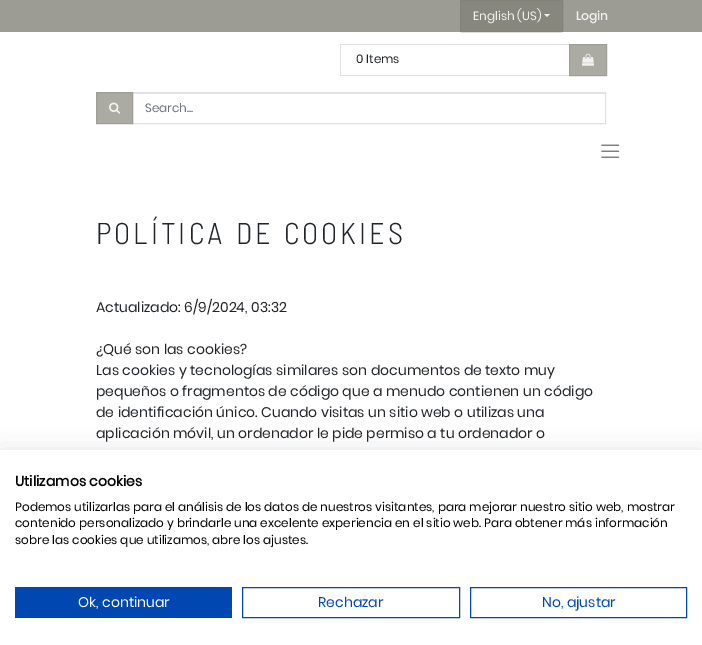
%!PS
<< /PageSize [702 645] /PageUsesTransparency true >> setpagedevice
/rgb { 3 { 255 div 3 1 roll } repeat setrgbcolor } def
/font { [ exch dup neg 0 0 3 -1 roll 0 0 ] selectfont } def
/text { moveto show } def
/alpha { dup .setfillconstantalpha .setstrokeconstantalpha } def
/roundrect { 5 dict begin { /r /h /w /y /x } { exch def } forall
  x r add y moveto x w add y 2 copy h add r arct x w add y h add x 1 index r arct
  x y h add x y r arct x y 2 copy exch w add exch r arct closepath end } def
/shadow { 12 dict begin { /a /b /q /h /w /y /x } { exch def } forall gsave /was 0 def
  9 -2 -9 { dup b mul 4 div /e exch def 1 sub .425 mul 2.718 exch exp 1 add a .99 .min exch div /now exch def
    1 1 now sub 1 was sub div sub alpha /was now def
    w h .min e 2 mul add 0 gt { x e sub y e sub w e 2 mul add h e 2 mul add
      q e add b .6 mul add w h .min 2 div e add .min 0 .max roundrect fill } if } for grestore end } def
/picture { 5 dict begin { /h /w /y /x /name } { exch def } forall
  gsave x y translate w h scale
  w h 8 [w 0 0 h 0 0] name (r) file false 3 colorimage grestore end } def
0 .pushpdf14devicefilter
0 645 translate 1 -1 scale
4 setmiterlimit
255 255 255 rgb
0 0 702 645 rectfill
171 171 164 rgb
569 44 38 32 rectfill
156 156 148 rgb
0 0 702 32 rectfill
135 135 126 rgb
460.5 0.5 102 31 0.5 roundrect gsave fill grestore
130 130 120 rgb
stroke
240 240 239 rgb
544 14 moveto 6 0 rlineto -3 3 rlineto closepath fill
222 226 230 rgb
340 44 230 1 rectfill
166 167 160 rgb
569 44 1 1 rectfill
222 226 230 rgb
340 75 230 1 rectfill
166 167 160 rgb
569 75 1 1 rectfill
222 226 230 rgb
340 44 1 32 rectfill
0.85 alpha
156 156 148 rgb
569.5 44.5 37 31 rectstroke
1 alpha
(img_01.rgb) 582 53 12 13 picture
230 230 230 rgb
133 93 472 1 rectfill
222 226 230 rgb
132.5 92.5 473 31 rectstroke
0.85 alpha
156 156 148 rgb
96 92 37 32 rectfill
96.5 92.5 36 31 rectstroke
1 alpha
(img_02.rgb) 109 102 11 12 picture
(img_03.rgb) 601 144 19 14 picture
0 0 0 rgb
0 450 702 195 0 12 0.1 shadow
255 255 255 rgb
0 450 702 195 rectfill
0 71 178 rgb
15 587 217 31 rectfill
242.5 587.5 217 30 rectstroke
470.5 587.5 216 30 rectstroke
/Poppins-Regular 12 font
240 240 239 rgb
(English \(US\)) 473 20 text
/Poppins-Bold 12 font
(Login) 576 20 text
/Poppins-Regular 12 font
33 37 41 rgb
(0 Items) 356 63 text
108 117 125 rgb
(Search...) 145 112 text
/BarlowSemiCondensed-Light 30 font
33 37 41 rgb
96 244 moveto 1 0 32 3 0 (POLÍTICA DE COOKIES) awidthshow
/Poppins-Regular 14 font
(Actualizado: 6/9/2024, 03:32) 96 312 text
(¿Qué son las cookies?) 96 354 text
(Las cookies y tecnologías similares son documentos de texto muy) 96 375 text
(pequeños o fragmentos de código que a menudo contienen un código) 96 396 text
(de identificación único. Cuando visitas un sitio web o utilizas una) 96 417 text
(aplicación móvil, un ordenador le pide permiso a tu ordenador o) 96 438 text
/Poppins-Bold 14 font
0 0 0 rgb
(Utilizamos cookies) 15 486 text
/Poppins-Regular 12 font
(Podemos utilizarlas para el análisis de los datos de nuestros visitantes, para mejorar nuestro sitio web, mostrar) 15 511 text
(contenido personalizado y brindarle una excelente experiencia en el sitio web. Para obtener más información) 15 527 text
(sobre las cookies que utilizamos, abre los ajustes.) 15 544 text
/Poppins-Regular 14 font
255 255 255 rgb
(Ok, continuar) 78 607 text
0 71 178 rgb
(Rechazar) 318 607 text
(No, ajustar) 542 607 text
.poppdf14devicefilter showpage
